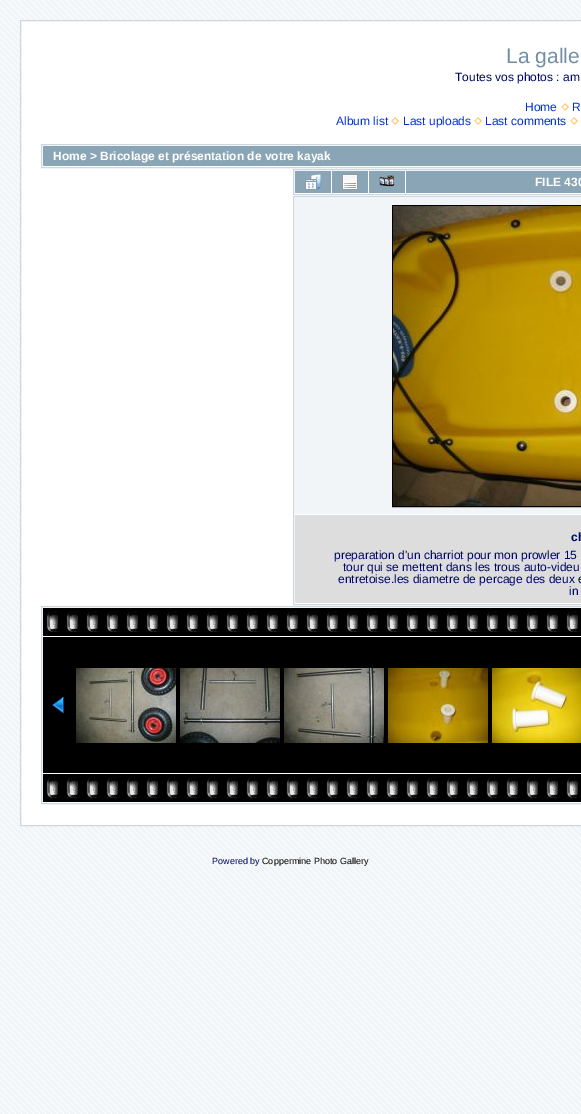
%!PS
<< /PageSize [581 1114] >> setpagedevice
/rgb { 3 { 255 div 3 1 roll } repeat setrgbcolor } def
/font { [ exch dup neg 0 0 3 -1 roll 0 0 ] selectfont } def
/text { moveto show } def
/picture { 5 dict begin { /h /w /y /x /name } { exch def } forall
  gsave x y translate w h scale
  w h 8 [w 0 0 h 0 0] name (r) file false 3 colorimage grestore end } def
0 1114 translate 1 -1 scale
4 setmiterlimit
242 245 247 rgb
0 0 581 1114 rectfill
(img_01.rgb) 0 0 581 1114 picture
255 255 255 rgb
20.5 20.5 moveto 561 0 rlineto 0 805 rlineto -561 0 rlineto closepath gsave fill grestore
204 215 224 rgb
stroke
(img_02.rgb) 561 103 8 8 picture
(img_02.rgb) 391 117 8 8 picture
(img_02.rgb) 474 117 8 8 picture
(img_02.rgb) 570 117 8 8 picture
41.5 144.5 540 23 rectstroke
138 165 181 rgb
43 146 538 20 rectfill
204 215 224 rgb
293.5 169.5 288 25 rectstroke
138 165 181 rgb
295 171 36 22 rectfill
(img_03.rgb) 305 174 16 16 picture
332 171 36 22 rectfill
(img_04.rgb) 342 174 16 16 picture
369 171 36 22 rectfill
(img_05.rgb) 379 175 16 12 picture
406 171 175 22 rectfill
204 215 224 rgb
293.5 196.5 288 408 rectstroke
242 245 247 rgb
295 198 286 316 rectfill
0 0 0 rgb
392.5 205.5 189 301 rectstroke
(img_06.rgb) 393 206 188 300 picture
221 221 221 rgb
295 515 286 88 rectfill
204 215 224 rgb
41.5 606.5 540 197 rectstroke
0 0 0 rgb
43 608 538 28 rectfill
(img_07.rgb) 46 608 534 24 picture
43 637 538 136 rectfill
(img_08.rgb) 52 697 12 16 picture
(img_09.rgb) 76 668 100 75 picture
(img_10.rgb) 180 668 100 75 picture
(img_11.rgb) 284 668 100 75 picture
(img_12.rgb) 388 668 100 75 picture
(img_13.rgb) 492 668 89 75 picture
43 774 538 28 rectfill
(img_07.rgb) 46 774 534 24 picture
/LiberationSans-Regular 21 font
113 142 165 rgb
(La galle) 506 63 text
/LiberationSans-Regular 12 font
0 6 102 rgb
(Toutes vos photos : am) 455 81 text
0 51 204 rgb
(Home) 525 111 text
(R) 572 111 text
(Album list) 336 125 text
(Last uploads) 403 125 text
(Last comments) 485 125 text
/LiberationSans-Bold 12 font
255 255 255 rgb
(Home > Bricolage et présentation de votre kayak) 53 160 text
(FILE 430) 535 186 text
0 6 102 rgb
(ch) 571 541 text
/LiberationSans-Regular 12 font
(preparation d'un charriot pour mon prowler 15) 334 559 text
(tour qui se mettent dans les trous auto-videu) 343 571 text
(entretoise.les diametre de percage des deux e) 338 583 text
(in) 569 595 text
/LiberationSans-Regular 9 font
(Powered by) 212 864 text
0 0 0 rgb
(Coppermine Photo Gallery) 262 864 text
showpage
